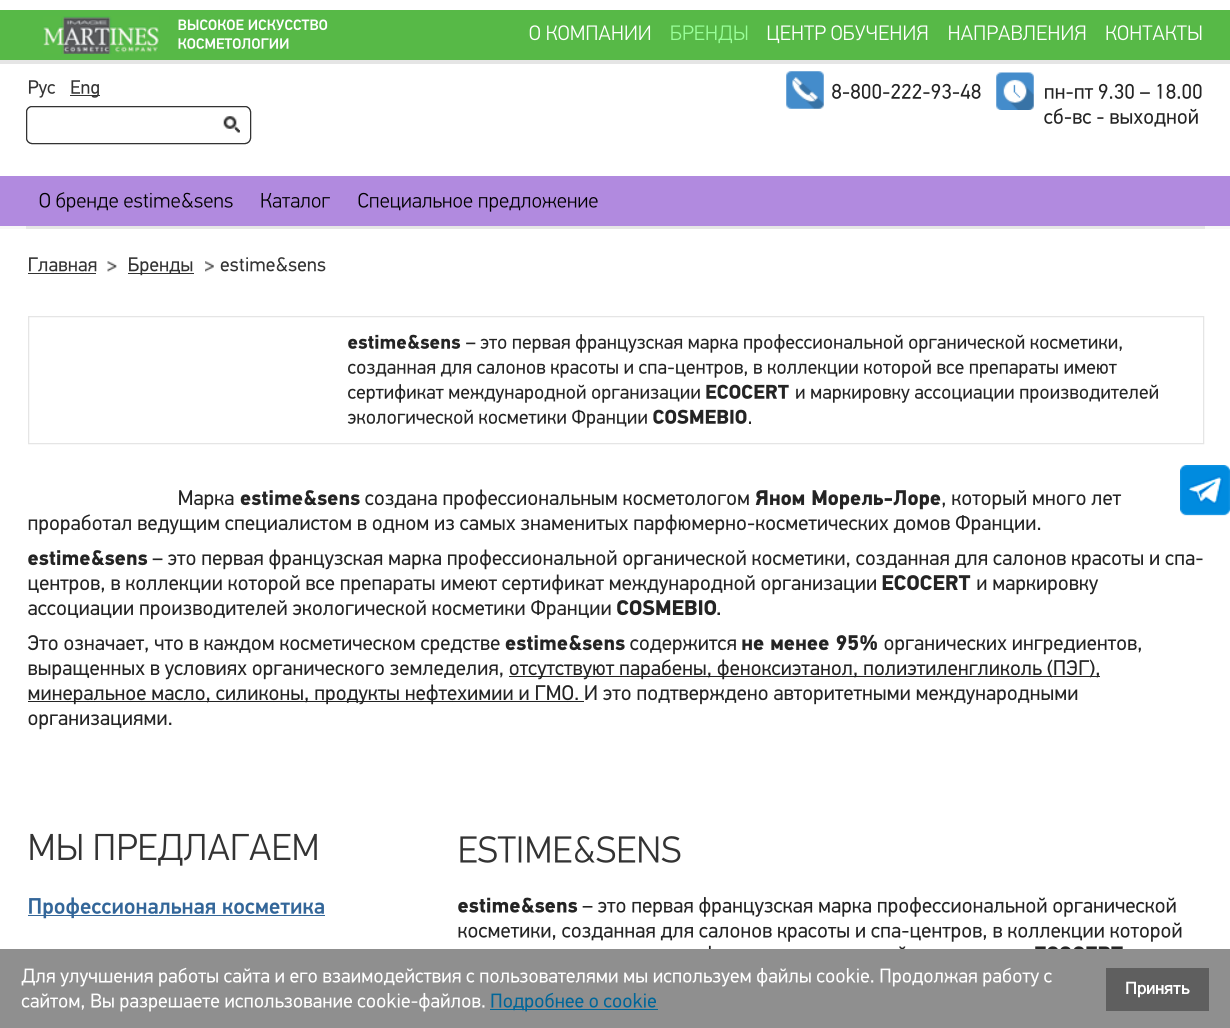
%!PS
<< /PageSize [1230 1028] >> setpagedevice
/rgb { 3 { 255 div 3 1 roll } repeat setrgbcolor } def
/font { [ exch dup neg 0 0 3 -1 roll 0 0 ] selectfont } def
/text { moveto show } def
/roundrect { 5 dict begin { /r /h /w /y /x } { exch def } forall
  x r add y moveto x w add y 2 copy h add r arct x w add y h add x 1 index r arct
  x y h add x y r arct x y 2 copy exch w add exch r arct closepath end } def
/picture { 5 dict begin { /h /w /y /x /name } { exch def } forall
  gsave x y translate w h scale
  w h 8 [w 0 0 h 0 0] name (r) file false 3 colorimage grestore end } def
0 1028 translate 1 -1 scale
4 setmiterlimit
255 255 255 rgb
0 0 1230 1028 rectfill
87 185 71 rgb
0 10 1230 50 rectfill
229 229 229 rgb
0 60 1230 4 rectfill
(img_01.rgb) 43 16 117 38 picture
(img_02.rgb) 178 19 150 12 picture
(img_03.rgb) 178 38 111 11 picture
(img_04.rgb) 529 25 122 16 picture
(img_05.rgb) 671 25 77 19 picture
(img_06.rgb) 767 25 161 19 picture
(img_07.rgb) 949 25 137 16 picture
(img_08.rgb) 1106 25 96 16 picture
(img_09.rgb) 28 80 28 18 picture
51 51 51 rgb
70 95 30 1 rectfill
(img_10.rgb) 71 80 28 18 picture
26.5 106.5 224 37 5.5 roundrect stroke
(img_11.rgb) 223 116 17 17 picture
(img_12.rgb) 786 71 38 38 picture
(img_13.rgb) 832 83 149 16 picture
(img_14.rgb) 996 72 38 38 picture
(img_15.rgb) 1045 83 157 16 picture
(img_16.rgb) 1044 108 154 19 picture
177 138 223 rgb
0 176 1230 50 rectfill
(img_17.rgb) 39 192 194 20 picture
(img_18.rgb) 261 193 69 15 picture
(img_19.rgb) 358 192 240 20 picture
247 247 247 rgb
0 226 1230 3 rectfill
229 229 229 rgb
26 226 1179 3 rectfill
(img_20.rgb) 29 257 68 15 picture
(img_21.rgb) 107 261 10 11 picture
51 51 51 rgb
28 273 68 1 rectfill
128 273 66 1 rectfill
(img_22.rgb) 129 257 64 19 picture
(img_23.rgb) 205 261 9 11 picture
(img_24.rgb) 220 257 106 15 picture
229 229 229 rgb
28.5 316.5 1175 127 rectstroke
(img_25.rgb) 348 334 113 15 picture
(img_26.rgb) 466 334 656 19 picture
(img_27.rgb) 348 359 769 19 picture
(img_28.rgb) 348 384 352 19 picture
(img_29.rgb) 706 384 83 15 picture
(img_30.rgb) 796 384 362 19 picture
(img_31.rgb) 347 409 300 19 picture
(img_32.rgb) 653 409 94 15 picture
36 36 36 rgb
749 424 moveto 0 -2.5 rlineto 2 0 rlineto 0 2.5 rlineto closepath fill
(img_33.rgb) 179 490 55 20 picture
(img_34.rgb) 240 490 120 16 picture
(img_35.rgb) 365 489 384 21 picture
(img_36.rgb) 755 490 186 20 picture
(img_37.rgb) 942 490 180 20 picture
(img_38.rgb) 28 514 1013 21 picture
(img_39.rgb) 28 550 120 16 picture
(img_40.rgb) 152 549 1051 21 picture
(img_41.rgb) 28 574 848 21 picture
(img_42.rgb) 882 575 89 16 picture
(img_43.rgb) 977 579 122 16 picture
(img_44.rgb) 28 600 583 20 picture
(img_45.rgb) 617 600 100 16 picture
717.5 615 moveto 0 -2.5 rlineto 2.5 0 rlineto 0 2.5 rlineto closepath fill
(img_46.rgb) 28 635 472 20 picture
(img_34.rgb) 505 635 120 16 picture
(img_47.rgb) 630 639 106 16 picture
(img_48.rgb) 742 634 135 17 picture
(img_49.rgb) 884 639 257 16 picture
(img_50.rgb) 28 664 475 16 picture
509 676 591 1 rectfill
(img_51.rgb) 509 659 590 21 picture
28 701 556 1 rectfill
(img_52.rgb) 28 684 550 21 picture
(img_53.rgb) 585 685 493 20 picture
(img_54.rgb) 28 714 144 16 picture
(img_55.rgb) 30 833 287 33 picture
51 102 153 rgb
28 915 297 1 rectfill
(img_56.rgb) 29 897 295 22 picture
(img_57.rgb) 460 836 221 27 picture
(img_58.rgb) 458 897 120 16 picture
(img_59.rgb) 582 897 594 20 picture
(img_60.rgb) 458 922 724 20 picture
(img_61.rgb) 708 945 198 4 picture
(img_62.rgb) 1035 946 88 3 picture
(img_63.rgb) 1180 465 50 51 picture
143 143 143 rgb
0 949 1230 79 rectfill
(img_64.rgb) 21 967 1031 20 picture
(img_65.rgb) 21 992 464 20 picture
0 102 153 rgb
490 1009 168 1 rectfill
(img_66.rgb) 491 992 165 20 picture
95 95 95 rgb
1106 968 103 43 rectfill
/Arial-Bold 16.5 font
255 255 255 rgb
(Принять) 1125 994 text
showpage
